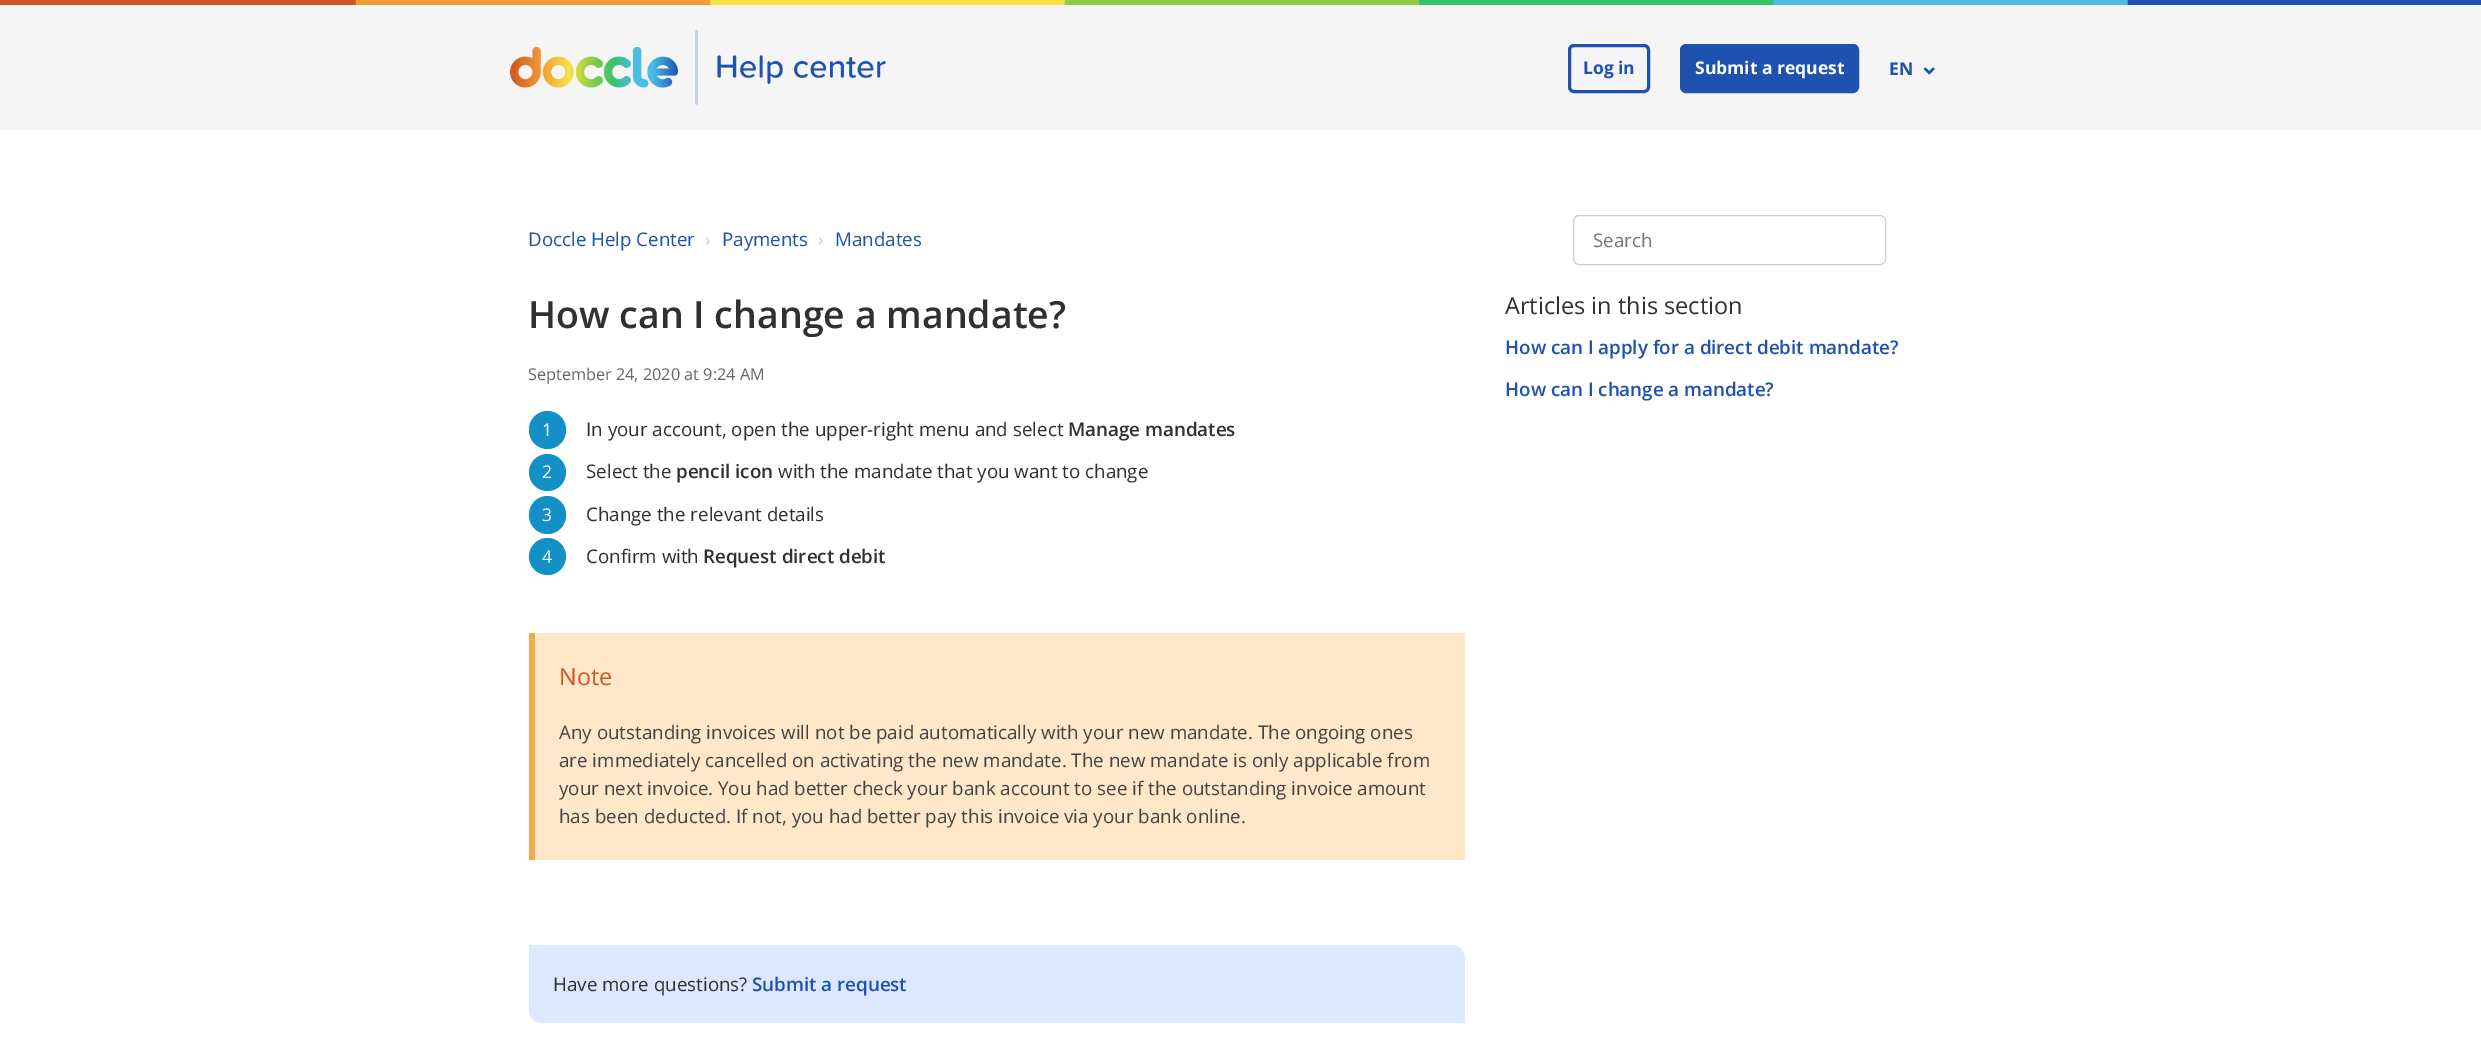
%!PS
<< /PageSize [2481 1049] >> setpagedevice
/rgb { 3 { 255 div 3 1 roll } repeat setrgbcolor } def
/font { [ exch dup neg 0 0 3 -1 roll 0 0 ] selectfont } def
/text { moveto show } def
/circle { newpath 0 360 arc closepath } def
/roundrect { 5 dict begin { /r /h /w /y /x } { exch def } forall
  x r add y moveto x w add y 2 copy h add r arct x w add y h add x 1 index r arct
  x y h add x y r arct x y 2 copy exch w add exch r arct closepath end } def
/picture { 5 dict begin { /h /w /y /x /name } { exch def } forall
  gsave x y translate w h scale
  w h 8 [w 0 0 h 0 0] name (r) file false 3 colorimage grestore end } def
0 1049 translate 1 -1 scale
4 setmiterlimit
255 255 255 rgb
0 0 2481 1049 rectfill
245 245 246 rgb
0 5 2481 125 rectfill
(img_01.rgb) 0 0 2481 5 picture
(img_02.rgb) 510 30 376 75 picture
31 81 175 rgb
3 setlinewidth
1569.5 45.5 79 46 4.5 roundrect stroke
1681.5 45.5 176 46 4.5 roundrect gsave fill grestore
stroke
(img_03.rgb) 1923 67 12 8 picture
204 204 204 rgb
1 setlinewidth
1573.5 215.5 312 49 5.5 roundrect stroke
19 144 197 rgb
529 411 37 38 18.5 roundrect fill
547.5 472.5 18.5 circle fill
529 496 37 38 18.5 roundrect fill
547.5 556.5 18.5 circle fill
255 231 202 rgb
535 633 930 227 rectfill
240 173 78 rgb
529 633 6 227 rectfill
220 232 255 rgb
529 945 moveto 923 0 rlineto 7 0 13 6 13 13 rcurveto 0 65 rlineto -923 0 rlineto -7 0 -13 -6 -13 -13 rcurveto closepath fill
/OpenSans-Bold 17.5 font
31 81 175 rgb
(Log in) 1583 74 text
255 255 255 rgb
(Submit a request) 1695 74 text
31 81 175 rgb
(EN) 1889 75 text
/OpenSans-Regular 18.75 font
(Doccle Help Center) 528 246 text
204 204 204 rgb
(›) 705 246 text
31 81 175 rgb
(Payments) 722 246 text
204 204 204 rgb
(›) 818 246 text
31 81 175 rgb
(Mandates) 835 246 text
117 117 117 rgb
(Search) 1593 247 text
/OpenSans-SemiBold 37.5 font
48 48 48 rgb
(How can I change a mandate?) 528 328 text
/OpenSans-Regular 16.25 font
102 102 102 rgb
(September 24, 2020 at 9:24 AM) 528 380 text
/OpenSans-Regular 17.5 font
255 255 255 rgb
(1) 542 436 text
/OpenSans-Regular 18.75 font
48 48 48 rgb
(In your account, open the upper-right menu and select) 586 436 text
/OpenSans-SemiBold 18.75 font
(Manage mandates) 1068 436 text
/OpenSans-Regular 17.5 font
255 255 255 rgb
(2) 542 478 text
/OpenSans-Regular 18.75 font
48 48 48 rgb
(Select the) 586 478 text
/OpenSans-SemiBold 18.75 font
(pencil icon) 676 478 text
/OpenSans-Regular 18.75 font
(with the mandate that you want to change) 778 478 text
/OpenSans-Regular 17.5 font
255 255 255 rgb
(3) 542 521 text
/OpenSans-Regular 18.75 font
48 48 48 rgb
(Change the relevant details) 586 521 text
/OpenSans-Regular 17.5 font
255 255 255 rgb
(4) 542 563 text
/OpenSans-Regular 18.75 font
48 48 48 rgb
(Confirm with) 586 563 text
/OpenSans-SemiBold 18.75 font
(Request direct debit) 703 563 text
/OpenSans-Regular 23.5 font
207 86 32 rgb
(Note) 559 685 text
/OpenSans-Regular 18.75 font
68 68 68 rgb
(Any outstanding invoices will not be paid automatically with your new mandate. The ongoing ones) 559 739 text
(are immediately cancelled on activating the new mandate. The new mandate is only applicable from) 559 767 text
(your next invoice. You had better check your bank account to see if the outstanding invoice amount) 559 795 text
(has been deducted. If not, you had better pay this invoice via your bank online.) 559 823 text
48 48 48 rgb
(Have more questions?) 553 991 text
/OpenSans-SemiBold 18.75 font
31 81 175 rgb
(Submit a request) 752 991 text
/OpenSans-Regular 23.5 font
48 48 48 rgb
(Articles in this section) 1505 314 text
/OpenSans-SemiBold 18.75 font
31 81 175 rgb
(How can I apply for a direct debit mandate?) 1505 354 text
(How can I change a mandate?) 1505 396 text
showpage
